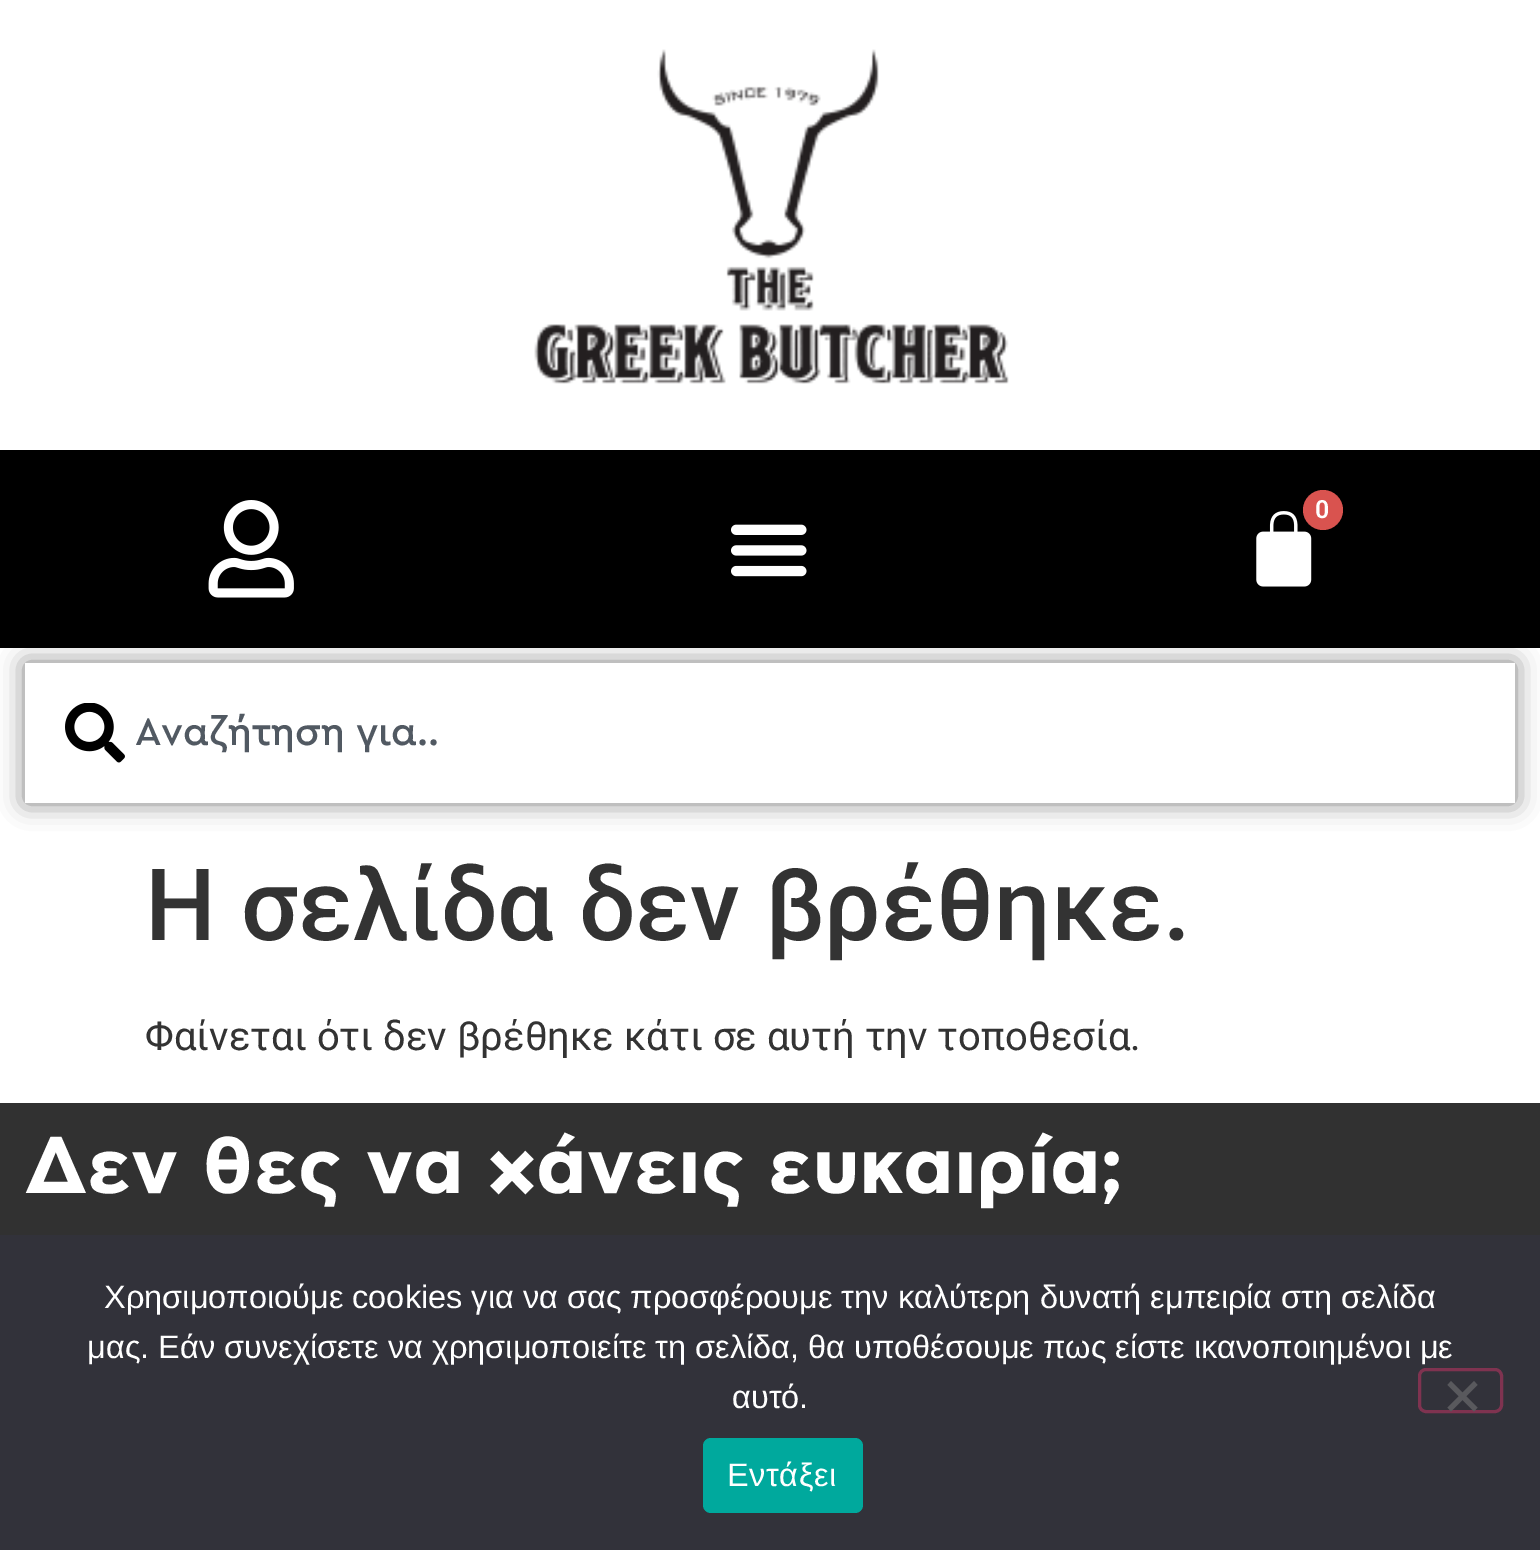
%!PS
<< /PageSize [1540 1550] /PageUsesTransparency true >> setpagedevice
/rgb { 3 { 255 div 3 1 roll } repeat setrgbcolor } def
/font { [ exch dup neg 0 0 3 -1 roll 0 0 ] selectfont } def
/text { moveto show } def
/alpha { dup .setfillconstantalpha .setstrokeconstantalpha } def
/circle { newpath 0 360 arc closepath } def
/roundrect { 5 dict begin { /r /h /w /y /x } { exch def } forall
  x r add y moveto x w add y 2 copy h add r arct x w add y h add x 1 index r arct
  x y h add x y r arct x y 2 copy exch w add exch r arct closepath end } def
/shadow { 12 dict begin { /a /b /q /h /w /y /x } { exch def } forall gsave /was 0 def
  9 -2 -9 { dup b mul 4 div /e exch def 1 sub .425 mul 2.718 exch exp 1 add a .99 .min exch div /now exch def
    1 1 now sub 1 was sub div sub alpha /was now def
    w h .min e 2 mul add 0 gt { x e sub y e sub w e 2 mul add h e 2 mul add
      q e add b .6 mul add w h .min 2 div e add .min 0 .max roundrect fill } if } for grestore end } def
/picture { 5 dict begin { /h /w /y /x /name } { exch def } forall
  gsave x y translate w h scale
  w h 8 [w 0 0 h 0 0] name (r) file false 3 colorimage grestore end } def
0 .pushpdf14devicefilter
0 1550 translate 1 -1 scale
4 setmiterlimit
255 255 255 rgb
0 0 1540 1550 rectfill
(img_01.rgb) 534 49 475 335 picture
0 0 0 rgb
25 663 1490 140 0 12.5 0.5 shadow
0 450 1540 198 rectfill
(img_02.rgb) 208 500 86 98 picture
(img_03.rgb) 1256 511 56 76 picture
217 83 79 rgb
1323 510 20 circle fill
(img_04.rgb) 731 524 76 53 picture
255 255 255 rgb
25 663 1490 140 rectfill
(img_05.rgb) 65 703 60 60 picture
49 49 49 rgb
0 1103 1540 132 rectfill
50 50 58 rgb
0 1235 1540 315 rectfill
127 51 80 rgb
3 setlinewidth
1419.5 1369.5 82 42 6.5 roundrect stroke
89 89 93 rgb
1474 1381 moveto 3.5 4 rlineto -26.5 26.5 rlineto -3.5 -4 rlineto closepath fill
1447.5 1385 moveto 3.5 -4 rlineto 26.5 26.5 rlineto -3.5 4 rlineto closepath fill
0 169 157 rgb
703 1438 160 75 8 roundrect fill
/Roboto-SemiBold 25 font
255 255 255 rgb
(0) 1315 518 text
/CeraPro-Medium 40 font
81 89 98 rgb
(Αναζήτηση για..) 135 745 text
/Roboto-Medium 100 font
51 51 51 rgb
(Η σελίδα δεν βρέθηκε.) 145 940 text
/Roboto-Regular 40 font
(Φαίνεται ότι δεν βρέθηκε κάτι σε αυτή την τοποθεσία.) 145 1050 text
/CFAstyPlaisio-Bold 80 font
255 255 255 rgb
(Δεν θες να χάνεις ευκαιρία;) 25 1193 text
/LiberationSans-Regular 32.5 font
(Χρησιμοποιούμε cookies για να σας προσφέρουμε την καλύτερη δυνατή εμπειρία στη σελίδα) 104 1308 text
(μας. Εάν συνεχίσετε να χρησιμοποιείτε τη σελίδα, θα υποθέσουμε πως είστε ικανοποιημένοι με) 87 1358 text
(αυτό.) 732 1408 text
727 1486 moveto 0.5 0 (Εντάξει) ashow
.poppdf14devicefilter showpage
